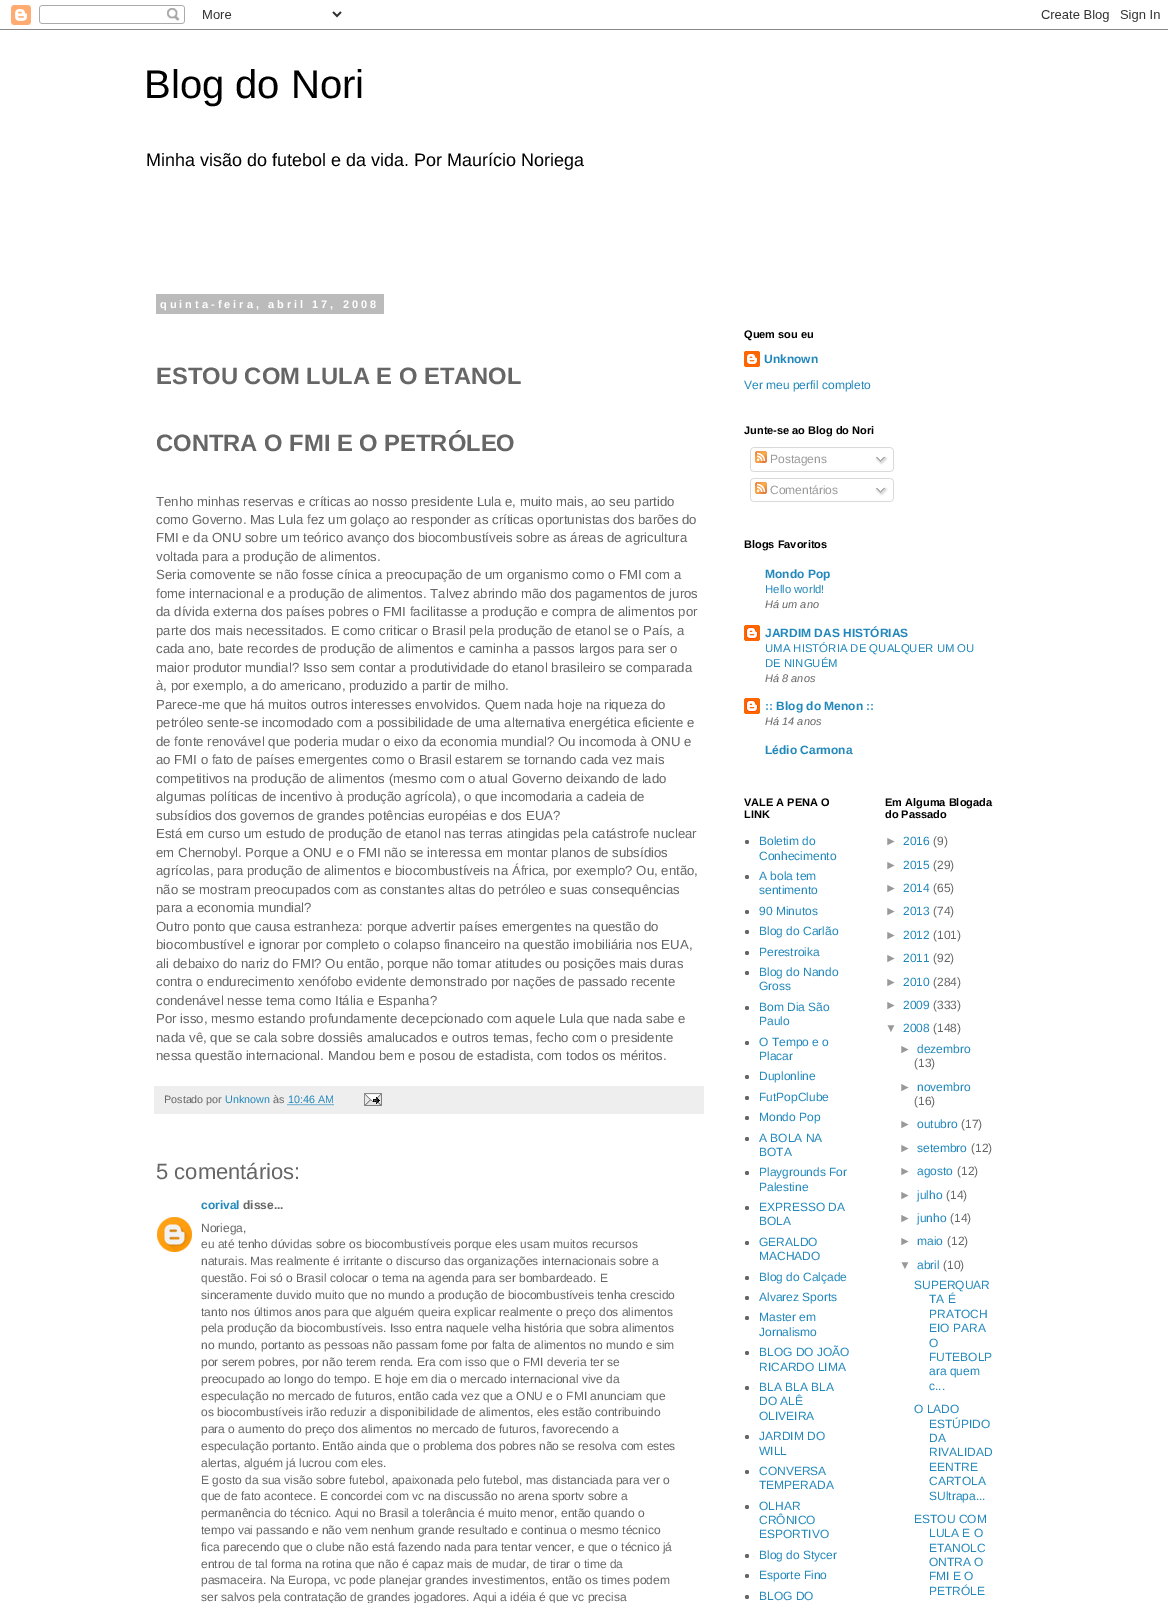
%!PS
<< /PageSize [1168 1603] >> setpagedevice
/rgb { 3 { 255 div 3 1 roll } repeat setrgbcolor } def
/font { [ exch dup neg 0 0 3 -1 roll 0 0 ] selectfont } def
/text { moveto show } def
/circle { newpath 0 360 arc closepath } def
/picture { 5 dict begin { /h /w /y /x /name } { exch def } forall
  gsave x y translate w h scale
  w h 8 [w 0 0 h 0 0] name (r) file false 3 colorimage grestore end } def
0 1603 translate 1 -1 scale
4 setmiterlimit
255 255 255 rgb
0 0 1168 1603 rectfill
(img_01.rgb) 0 5 1168 25 picture
187 187 187 rgb
156 294 228 20 rectfill
238 238 238 rgb
154 1086 550 28 rectfill
34 136 187 rgb
[1 1] 0 setdash
287.5 1104.5 moveto 46.5 0 rlineto stroke
(img_02.rgb) 364 1093 18 13 picture
(img_03.rgb) 157 1217 35 35 picture
(img_04.rgb) 744 351 16 16 picture
(img_05.rgb) 750 447 144 22 picture
(img_06.rgb) 755 451 12 12 picture
(img_07.rgb) 875 456 13 9 picture
(img_08.rgb) 750 469 144 3 picture
(img_09.rgb) 750 478 144 21 picture
(img_06.rgb) 755 482 12 12 picture
(img_07.rgb) 875 487 13 9 picture
(img_08.rgb) 750 499 144 3 picture
(img_10.rgb) 744 625 16 16 picture
(img_10.rgb) 744 698 16 16 picture
102 102 102 rgb
747 842 2 circle fill
747 877 2 circle fill
747 912 2 circle fill
747 932 2 circle fill
747 953 2 circle fill
747 973 2 circle fill
747 1008 2 circle fill
747 1043 2 circle fill
747 1077 2 circle fill
747 1098 2 circle fill
747 1118 2 circle fill
747 1139 2 circle fill
747 1173 2 circle fill
747 1208 2 circle fill
747 1243 2 circle fill
747 1278 2 circle fill
747 1298 2 circle fill
747 1318 2 circle fill
747 1353 2 circle fill
747 1388 2 circle fill
747 1437 2 circle fill
747 1472 2 circle fill
747 1507 2 circle fill
747 1556 2 circle fill
747 1576 2 circle fill
747 1597 2 circle fill
/LiberationSans-Regular 40 font
0 0 0 rgb
(Blog do Nori) 144 98 text
/LiberationSans-Regular 18 font
(Minha visão do futebol e da vida. Por Maurício Noriega) 146 166 text
/LiberationSans-Bold 11 font
255 255 255 rgb
160 308 moveto 3 0 (quinta-feira, abril 17, 2008) ashow
/LiberationSans-Bold 23.75 font
102 102 102 rgb
(ESTOU COM LULA E O ETANOL) 156 384 text
(CONTRA O FMI E O PETRÓLEO) 156 451 text
/LiberationSans-Regular 13.2 font
(Tenho minhas reservas e críticas ao nosso presidente Lula e, muito mais, ao seu partido) 156 506 text
(como Governo. Mas Lula fez um golaço ao responder as críticas oportunistas dos barões do) 156 524 text
(FMI e da ONU sobre um teórico avanço dos biocombustíveis sobre as áreas de agricultura) 156 542 text
(voltada para a produção de alimentos.) 156 561 text
(Seria comovente se não fosse cínica a preocupação de um organismo como o FMI com a) 156 579 text
(fome internacional e a produção de alimentos. Talvez abrindo mão dos pagamentos de juros) 156 598 text
(da dívida externa dos países pobres o FMI facilitasse a produção e compra de alimentos por) 156 616 text
(parte dos mais necessitados. E como criticar o Brasil pela produção de etanol se o País, a) 156 635 text
(cada ano, bate recordes de produção de alimentos e caminha a passos largos para ser o) 156 653 text
(maior produtor mundial? Isso sem contar a produtividade do etanol brasileiro se comparada) 156 672 text
(à, por exemplo, a do americano, produzido a partir de milho.) 156 690 text
(Parece-me que há muitos outros interesses envolvidos. Quem nada hoje na riqueza do) 156 709 text
(petróleo sente-se incomodado com a possibilidade de uma alternativa energética eficiente e) 156 727 text
(de fonte renovável que poderia mudar o eixo da economia mundial? Ou incomoda à ONU e) 156 746 text
(ao FMI o fato de países emergentes como o Brasil estarem se tornando cada vez mais) 156 764 text
(competitivos na produção de alimentos \(mesmo com o atual Governo deixando de lado) 156 783 text
(algumas políticas de incentivo à produção agrícola\), o que incomodaria a cadeia de) 156 801 text
(subsídios dos governos de grandes potências européias e dos EUA?) 156 820 text
(Está em curso um estudo de produção de etanol nas terras atingidas pela catástrofe nuclear) 156 838 text
(em Chernobyl. Porque a ONU e o FMI não se interessa em montar planos de subsídios) 156 857 text
(agrícolas, para produção de alimentos e biocombustíveis na África, por exemplo? Ou, então,) 156 875 text
(não se mostram preocupados com as constantes altas do petróleo e suas consequências) 156 894 text
(para a economia mundial?) 156 912 text
(Outro ponto que causa estranheza: porque advertir países emergentes na questão do) 156 931 text
(biocombustível e ignorar por completo o colapso financeiro na questão imobiliária nos EUA,) 156 949 text
(ali debaixo do nariz do FMI? Ou então, porque não tomar atitudes ou posições mais duras) 156 968 text
(contra o endurecimento xenófobo evidente demonstrado por nações de passado recente) 156 986 text
(condenável nesse tema como Itália e Espanha?) 156 1005 text
(Por isso, mesmo estando profundamente decepcionado com aquele Lula que nada sabe e) 156 1023 text
(nada vê, que se cala sobre dossiês amalucados e outros temas, fecho com o presidente) 156 1042 text
(nessa questão internacional. Mandou bem e posou de estadista, com todos os méritos.) 156 1060 text
/LiberationSans-Regular 10.75 font
(Postado por) 164 1103 text
34 136 187 rgb
(Unknown) 225 1103 text
102 102 102 rgb
(às) 273 1103 text
34 136 187 rgb
(10:46 AM) 288 1103 text
/LiberationSans-Regular 22 font
102 102 102 rgb
(5 comentários:) 156 1179 text
/LiberationSans-Bold 12 font
34 136 187 rgb
(corival) 201 1209 text
102 102 102 rgb
(disse...) 243 1209 text
/LiberationSans-Regular 12 font
(Noriega,) 201 1232 text
(eu até tenho dúvidas sobre os biocombustíveis porque eles usam muitos recursos) 201 1248 text
(naturais. Mas realmente é irritante o discurso das organizações internacionais sobre a) 201 1265 text
(questão. Foi só o Brasil colocar o tema na agenda para ser bombardeado. E) 201 1282 text
(sinceramente duvido muito que no mundo a produção de biocombustíveis tenha crescido) 201 1299 text
(tanto nos últimos anos para que alguém queira explicar realmente o preço dos alimentos) 201 1316 text
(pela produção da biocombustíveis. Isso entra naquele velha história que sobra alimentos) 201 1332 text
(no mundo, portanto as pessoas não passam fome por falta de alimentos no mundo e sim) 201 1349 text
(por serem pobres, por não terem renda. Era com isso que o FMI deveria ter se) 201 1366 text
(preocupado ao longo do tempo. E hoje em dia o mercado internacional vive da) 201 1383 text
(especulação no mercado de futuros, então cada vez que a ONU e o FMI anunciam que) 201 1400 text
(os biocombustíveis irão reduzir a disponibilidade de alimentos, eles estão contribuindo) 201 1416 text
(para o aumento do preço dos alimentos no mercado de futuros, favorecendo a) 201 1433 text
(especulação portanto. Então ainda que o problema dos pobres não se resolva com estes) 201 1450 text
(alertas, alguém já lucrou com eles.) 201 1467 text
(E gosto da sua visão sobre futebol, apaixonada pelo futebol, mas distanciada para ver o) 201 1484 text
(que de fato acontece. E concordei com vc na discussão no arena sportv sobre a) 201 1500 text
(permanência do técnico. Aqui no Brasil a tolerância é muito menor, então quando o) 201 1517 text
(tempo vai passando e não vem nenhum grande resultado e continua o mesmo técnico) 201 1534 text
(fica parecendo que o clube não está fazendo nada para tentar vencer, e que o técnico já) 201 1551 text
(entrou de tal forma na rotina que não é capaz mais de mudar, de tirar o time da) 201 1568 text
(pasmaceira. Na Europa, vc pode planejar grandes investimentos, então os times podem) 201 1584 text
(ser salvos pela contratação de grandes jogadores. Aqui a idéia é que vc precisa) 201 1601 text
/LiberationSans-Bold 11 font
0 0 0 rgb
(Quem sou eu) 744 338 text
/LiberationSans-Bold 12 font
34 136 187 rgb
(Unknown) 764 363 text
/LiberationSans-Regular 12 font
(Ver meu perfil completo) 744 389 text
/LiberationSans-Bold 11 font
0 0 0 rgb
(Junte-se ao Blog do Nori) 744 434 text
/LiberationSans-Regular 12 font
153 153 153 rgb
(Postagens) 770 463 text
(Comentários) 770 494 text
/LiberationSans-Bold 11 font
0 0 0 rgb
(Blogs Favoritos) 744 548 text
/LiberationSans-Bold 12 font
34 136 187 rgb
(Mondo Pop) 765 578 text
/LiberationSans-Regular 11.4 font
(Hello world!) 765 593 text
/LiberationSans-Italic 11 font
102 102 102 rgb
(Há um ano) 765 608 text
/LiberationSans-Bold 12 font
34 136 187 rgb
(JARDIM DAS HISTÓRIAS) 765 637 text
/LiberationSans-Regular 11.4 font
(UMA HISTÓRIA DE QUALQUER UM OU) 765 652 text
(DE NINGUÉM) 765 667 text
/LiberationSans-Italic 11 font
102 102 102 rgb
(Há 8 anos) 765 682 text
/LiberationSans-Bold 12 font
34 136 187 rgb
(:: Blog do Menon ::) 765 710 text
/LiberationSans-Italic 11 font
102 102 102 rgb
(Há 14 anos) 765 725 text
/LiberationSans-Bold 12 font
34 136 187 rgb
(Lédio Carmona) 765 754 text
/LiberationSans-Bold 11 font
0 0 0 rgb
(VALE A PENA O) 744 806 text
(LINK) 744 818 text
/LiberationSans-Regular 12 font
34 136 187 rgb
(Boletim do) 759 845 text
(Conhecimento) 759 860 text
(A bola tem) 759 880 text
(sentimento) 759 894 text
(90 Minutos) 759 915 text
(Blog do Carlão) 759 935 text
(Perestroika) 759 956 text
(Blog do Nando) 759 976 text
(Gross) 759 990 text
(Bom Dia São) 759 1011 text
(Paulo) 759 1025 text
(O Tempo e o) 759 1046 text
(Placar) 759 1060 text
(Duplonline) 759 1080 text
(FutPopClube) 759 1101 text
(Mondo Pop) 759 1121 text
(A BOLA NA) 759 1142 text
(BOTA) 759 1156 text
(Playgrounds For) 759 1176 text
(Palestine) 759 1191 text
(EXPRESSO DA) 759 1211 text
(BOLA) 759 1225 text
(GERALDO) 759 1246 text
(MACHADO) 759 1260 text
(Blog do Calçade) 759 1281 text
(Alvarez Sports) 759 1301 text
(Master em) 759 1321 text
(Jornalismo) 759 1336 text
(BLOG DO JOÃO) 759 1356 text
(RICARDO LIMA) 759 1371 text
(BLA BLA BLA) 759 1391 text
(DO ALÊ) 759 1405 text
(OLIVEIRA) 759 1420 text
(JARDIM DO) 759 1440 text
(WILL) 759 1455 text
(CONVERSA) 759 1475 text
(TEMPERADA) 759 1489 text
(OLHAR) 759 1510 text
(CRÔNICO) 759 1524 text
(ESPORTIVO) 759 1538 text
(Blog do Stycer) 759 1559 text
(Esporte Fino) 759 1579 text
(BLOG DO) 759 1600 text
/LiberationSans-Bold 11 font
0 0 0 rgb
(Em Alguma Blogada) 885 806 text
(do Passado) 885 818 text
/LiberationSans-Regular 12 font
153 153 153 rgb
(►) 885 845 text
34 136 187 rgb
(2016) 903 845 text
102 102 102 rgb
(\(9\)) 933 845 text
153 153 153 rgb
(►) 885 869 text
34 136 187 rgb
(2015) 903 869 text
102 102 102 rgb
(\(29\)) 933 869 text
153 153 153 rgb
(►) 885 892 text
34 136 187 rgb
(2014) 903 892 text
102 102 102 rgb
(\(65\)) 933 892 text
153 153 153 rgb
(►) 885 915 text
34 136 187 rgb
(2013) 903 915 text
102 102 102 rgb
(\(74\)) 933 915 text
153 153 153 rgb
(►) 885 939 text
34 136 187 rgb
(2012) 903 939 text
102 102 102 rgb
(\(101\)) 933 939 text
153 153 153 rgb
(►) 885 962 text
34 136 187 rgb
(2011) 903 962 text
102 102 102 rgb
(\(92\)) 933 962 text
153 153 153 rgb
(►) 885 986 text
34 136 187 rgb
(2010) 903 986 text
102 102 102 rgb
(\(284\)) 933 986 text
153 153 153 rgb
(►) 885 1009 text
34 136 187 rgb
(2009) 903 1009 text
102 102 102 rgb
(\(333\)) 933 1009 text
153 153 153 rgb
(▼) 885 1032 text
34 136 187 rgb
(2008) 903 1032 text
102 102 102 rgb
(\(148\)) 933 1032 text
153 153 153 rgb
(►) 899 1053 text
34 136 187 rgb
(dezembro) 917 1053 text
102 102 102 rgb
(\(13\)) 914 1067 text
153 153 153 rgb
(►) 899 1091 text
34 136 187 rgb
(novembro) 917 1091 text
102 102 102 rgb
(\(16\)) 914 1105 text
153 153 153 rgb
(►) 899 1128 text
34 136 187 rgb
(outubro) 917 1128 text
102 102 102 rgb
(\(17\)) 961 1128 text
153 153 153 rgb
(►) 899 1152 text
34 136 187 rgb
(setembro) 917 1152 text
102 102 102 rgb
(\(12\)) 971 1152 text
153 153 153 rgb
(►) 899 1175 text
34 136 187 rgb
(agosto) 917 1175 text
102 102 102 rgb
(\(12\)) 957 1175 text
153 153 153 rgb
(►) 899 1199 text
34 136 187 rgb
(julho) 917 1199 text
102 102 102 rgb
(\(14\)) 946 1199 text
153 153 153 rgb
(►) 899 1222 text
34 136 187 rgb
(junho) 917 1222 text
102 102 102 rgb
(\(14\)) 950 1222 text
153 153 153 rgb
(►) 899 1245 text
34 136 187 rgb
(maio) 917 1245 text
102 102 102 rgb
(\(12\)) 947 1245 text
153 153 153 rgb
(▼) 899 1269 text
34 136 187 rgb
(abril) 917 1269 text
102 102 102 rgb
(\(10\)) 943 1269 text
34 136 187 rgb
(SUPERQUAR) 914 1289 text
(TA É) 929 1303 text
(PRATOCH) 929 1318 text
(EIO PARA) 929 1332 text
(O) 929 1347 text
(FUTEBOLP) 929 1361 text
(ara quem) 929 1375 text
(c...) 929 1390 text
(O LADO) 914 1413 text
(ESTÚPIDO) 929 1428 text
(DA) 929 1442 text
(RIVALIDAD) 929 1456 text
(EENTRE) 929 1471 text
(CARTOLA) 929 1485 text
(SUltrapa...) 929 1500 text
(ESTOU COM) 914 1523 text
(LULA E O) 929 1537 text
(ETANOLC) 929 1552 text
(ONTRA O) 929 1566 text
(FMI E O) 929 1580 text
(PETRÓLE) 929 1595 text
showpage
